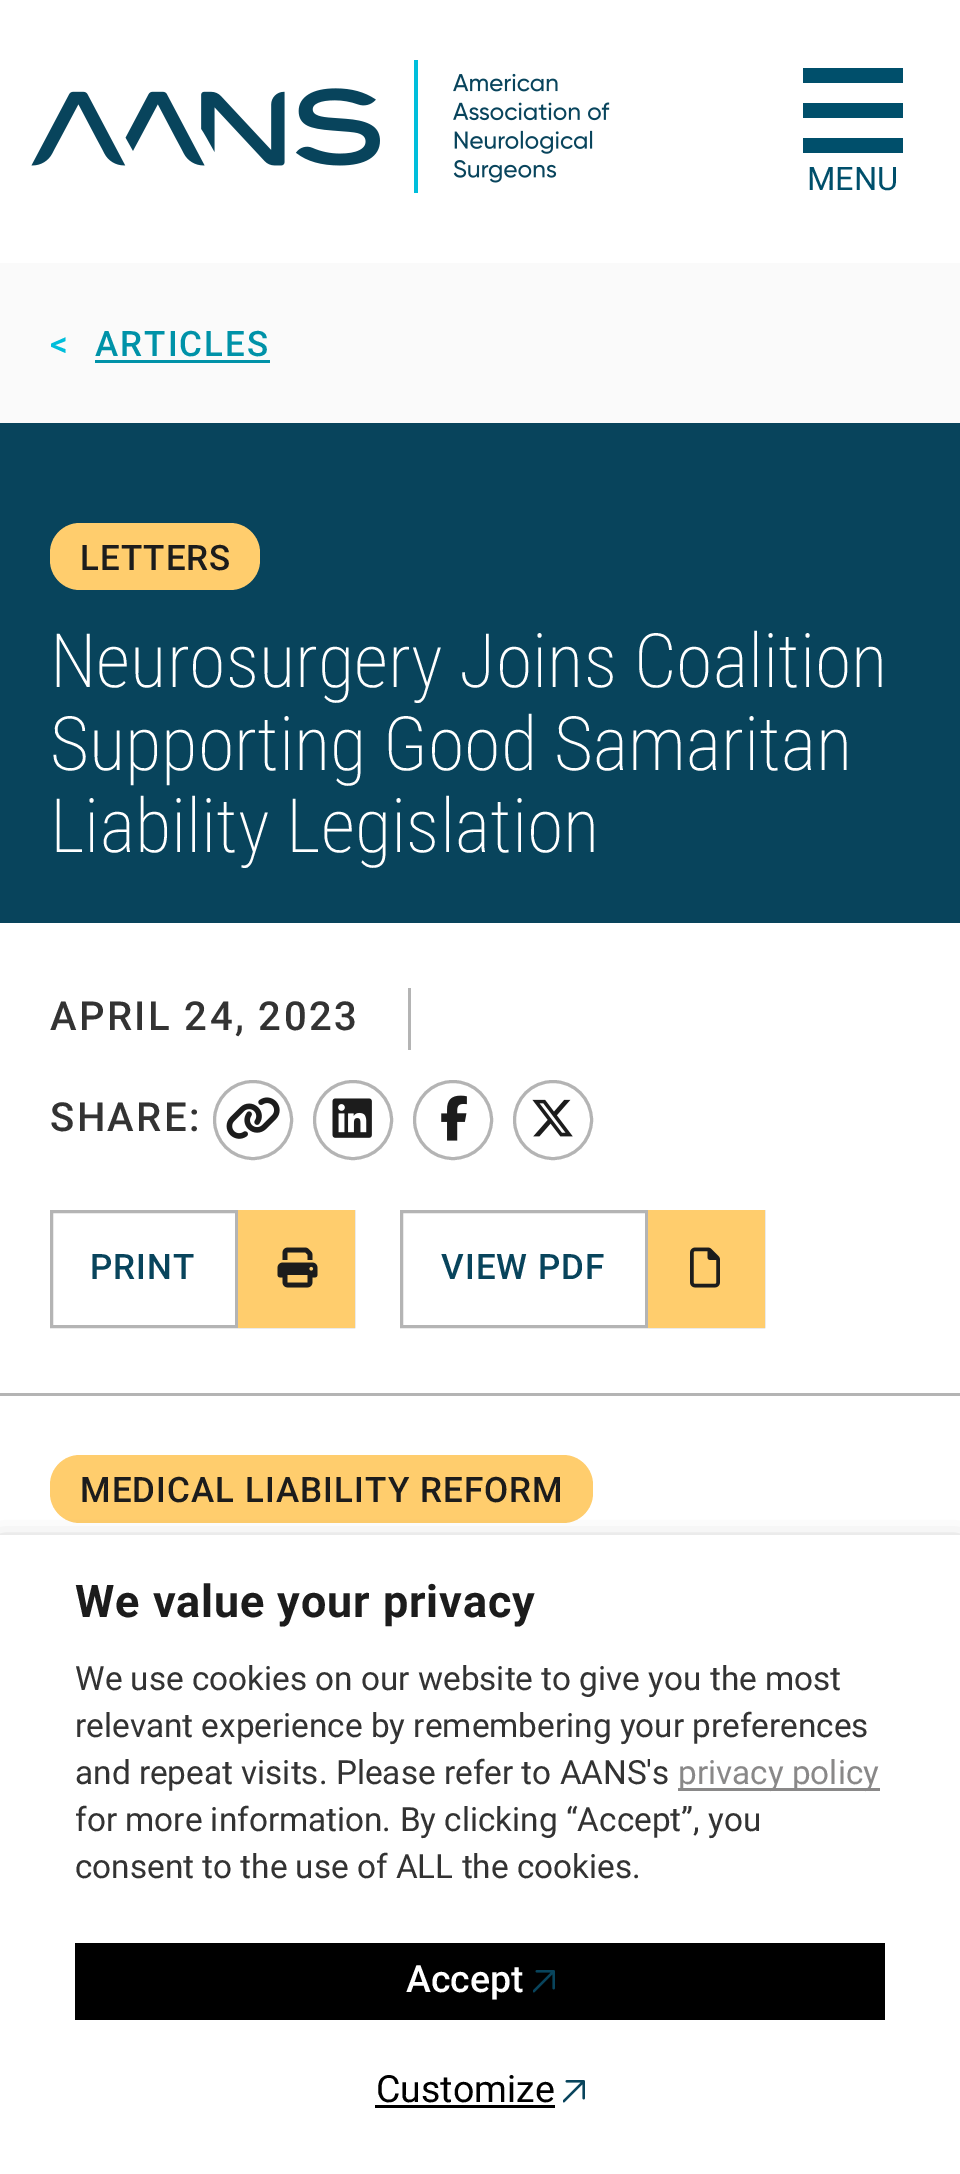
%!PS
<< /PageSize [960 2174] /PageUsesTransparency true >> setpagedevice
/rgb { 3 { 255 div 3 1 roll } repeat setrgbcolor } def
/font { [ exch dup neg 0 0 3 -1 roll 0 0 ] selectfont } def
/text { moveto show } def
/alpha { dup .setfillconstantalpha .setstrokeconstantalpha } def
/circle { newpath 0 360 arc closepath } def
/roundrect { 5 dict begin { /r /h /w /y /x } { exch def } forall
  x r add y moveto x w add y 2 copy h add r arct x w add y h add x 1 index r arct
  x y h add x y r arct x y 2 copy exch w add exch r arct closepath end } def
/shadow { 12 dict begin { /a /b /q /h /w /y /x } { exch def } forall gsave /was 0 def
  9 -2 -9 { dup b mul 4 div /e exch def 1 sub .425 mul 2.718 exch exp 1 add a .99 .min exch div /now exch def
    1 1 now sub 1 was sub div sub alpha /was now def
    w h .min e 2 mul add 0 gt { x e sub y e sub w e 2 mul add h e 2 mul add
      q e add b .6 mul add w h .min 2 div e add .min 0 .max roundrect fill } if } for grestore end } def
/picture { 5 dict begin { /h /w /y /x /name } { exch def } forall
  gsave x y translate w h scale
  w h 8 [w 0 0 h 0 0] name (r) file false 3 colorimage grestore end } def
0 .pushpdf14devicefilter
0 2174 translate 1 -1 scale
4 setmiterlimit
255 255 255 rgb
0 0 960 2174 rectfill
0 79 107 rgb
803 103 100 15 rectfill
803 68 100 15 rectfill
803 138 100 15 rectfill
(img_01.rgb) 31 60 579 133 picture
250 250 250 rgb
0 263 960 160 rectfill
0 146 168 rgb
95 360 175 3 rectfill
8 68 92 rgb
0 423 960 500 rectfill
255 205 109 rgb
50 523 210 67 30 roundrect fill
180 180 180 rgb
0 1393 960 3 rectfill
408 988 3 62 rectfill
3 setlinewidth
253 1120 38.5 circle stroke
(img_02.rgb) 226 1097 54 42 picture
353 1120 38.5 circle stroke
(img_03.rgb) 332 1098 40 40 picture
453 1120 38.5 circle stroke
(img_04.rgb) 441 1095 26 46 picture
553 1120 38.5 circle stroke
(img_05.rgb) 532 1099 41 38 picture
51.5 1211.5 302 115 rectstroke
255 205 109 rgb
238 1210 117 118 rectfill
180 180 180 rgb
235 1210 3 118 rectfill
(img_06.rgb) 277 1247 41 41 picture
401.5 1211.5 362 115 rectstroke
255 205 109 rgb
648 1210 117 118 rectfill
180 180 180 rgb
645 1210 3 118 rectfill
(img_07.rgb) 690 1247 30 41 picture
255 205 109 rgb
50 1455 543 68 30 roundrect fill
0 0 0 rgb
0 1548 960 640 0 12.5 0.5 shadow
255 255 255 rgb
0 1535 960 639 rectfill
137 136 136 rgb
678 1788 202 3 rectfill
0 0 0 rgb
75 1943 810 77 rectfill
(img_08.rgb) 533 1970 22 23 picture
375 2105 180 3 rectfill
(img_09.rgb) 563 2080 22 23 picture
/Roboto-Regular 32.5 font
0 79 107 rgb
(MENU) 807 190 text
/Roboto-Medium 35 font
0 190 219 rgb
50 356 moveto 2 0 (<) ashow
0 146 168 rgb
95 356 moveto 2 0 (ARTICLES) ashow
28 28 28 rgb
80 570 moveto 1.05 0 (LETTERS) ashow
/RobotoCondensed-ExtraLight 75 font
255 255 255 rgb
(Neurosurgery Joins Coalition) 50 687 text
(Supporting Good Samaritan) 50 770 text
(Liability Legislation) 50 852 text
/Roboto-Medium 40 font
51 51 51 rgb
50 1030 moveto 2.4 0 (APRIL 24, 2023) ashow
50 1131 moveto 2.4 0 (SHARE:) ashow
/Roboto-Medium 35 font
8 68 92 rgb
90 1279 moveto 1.05 0 (PRINT) ashow
441 1279 moveto 1.05 0 (VIEW PDF) ashow
28 28 28 rgb
80 1502 moveto 1.05 0 (MEDICAL LIABILITY REFORM) ashow
/Roboto-Bold 45 font
75 1617 moveto 0.9 0 (We value your privacy) ashow
/Roboto-Regular 33.3 font
51 51 51 rgb
(We use cookies on our website to give you the most) 75 1690 text
(relevant experience by remembering your preferences) 75 1737 text
(and repeat visits. Please refer to AANS's) 75 1784 text
137 136 136 rgb
(privacy policy) 678 1784 text
51 51 51 rgb
(for more information. By clicking “Accept”, you) 75 1831 text
(consent to the use of ALL the cookies.) 75 1878 text
/Roboto-Medium 37.5 font
255 255 255 rgb
(Accept) 406 1992 text
/Roboto-Regular 37.5 font
0 0 0 rgb
(Customize) 376 2102 text
.poppdf14devicefilter showpage
